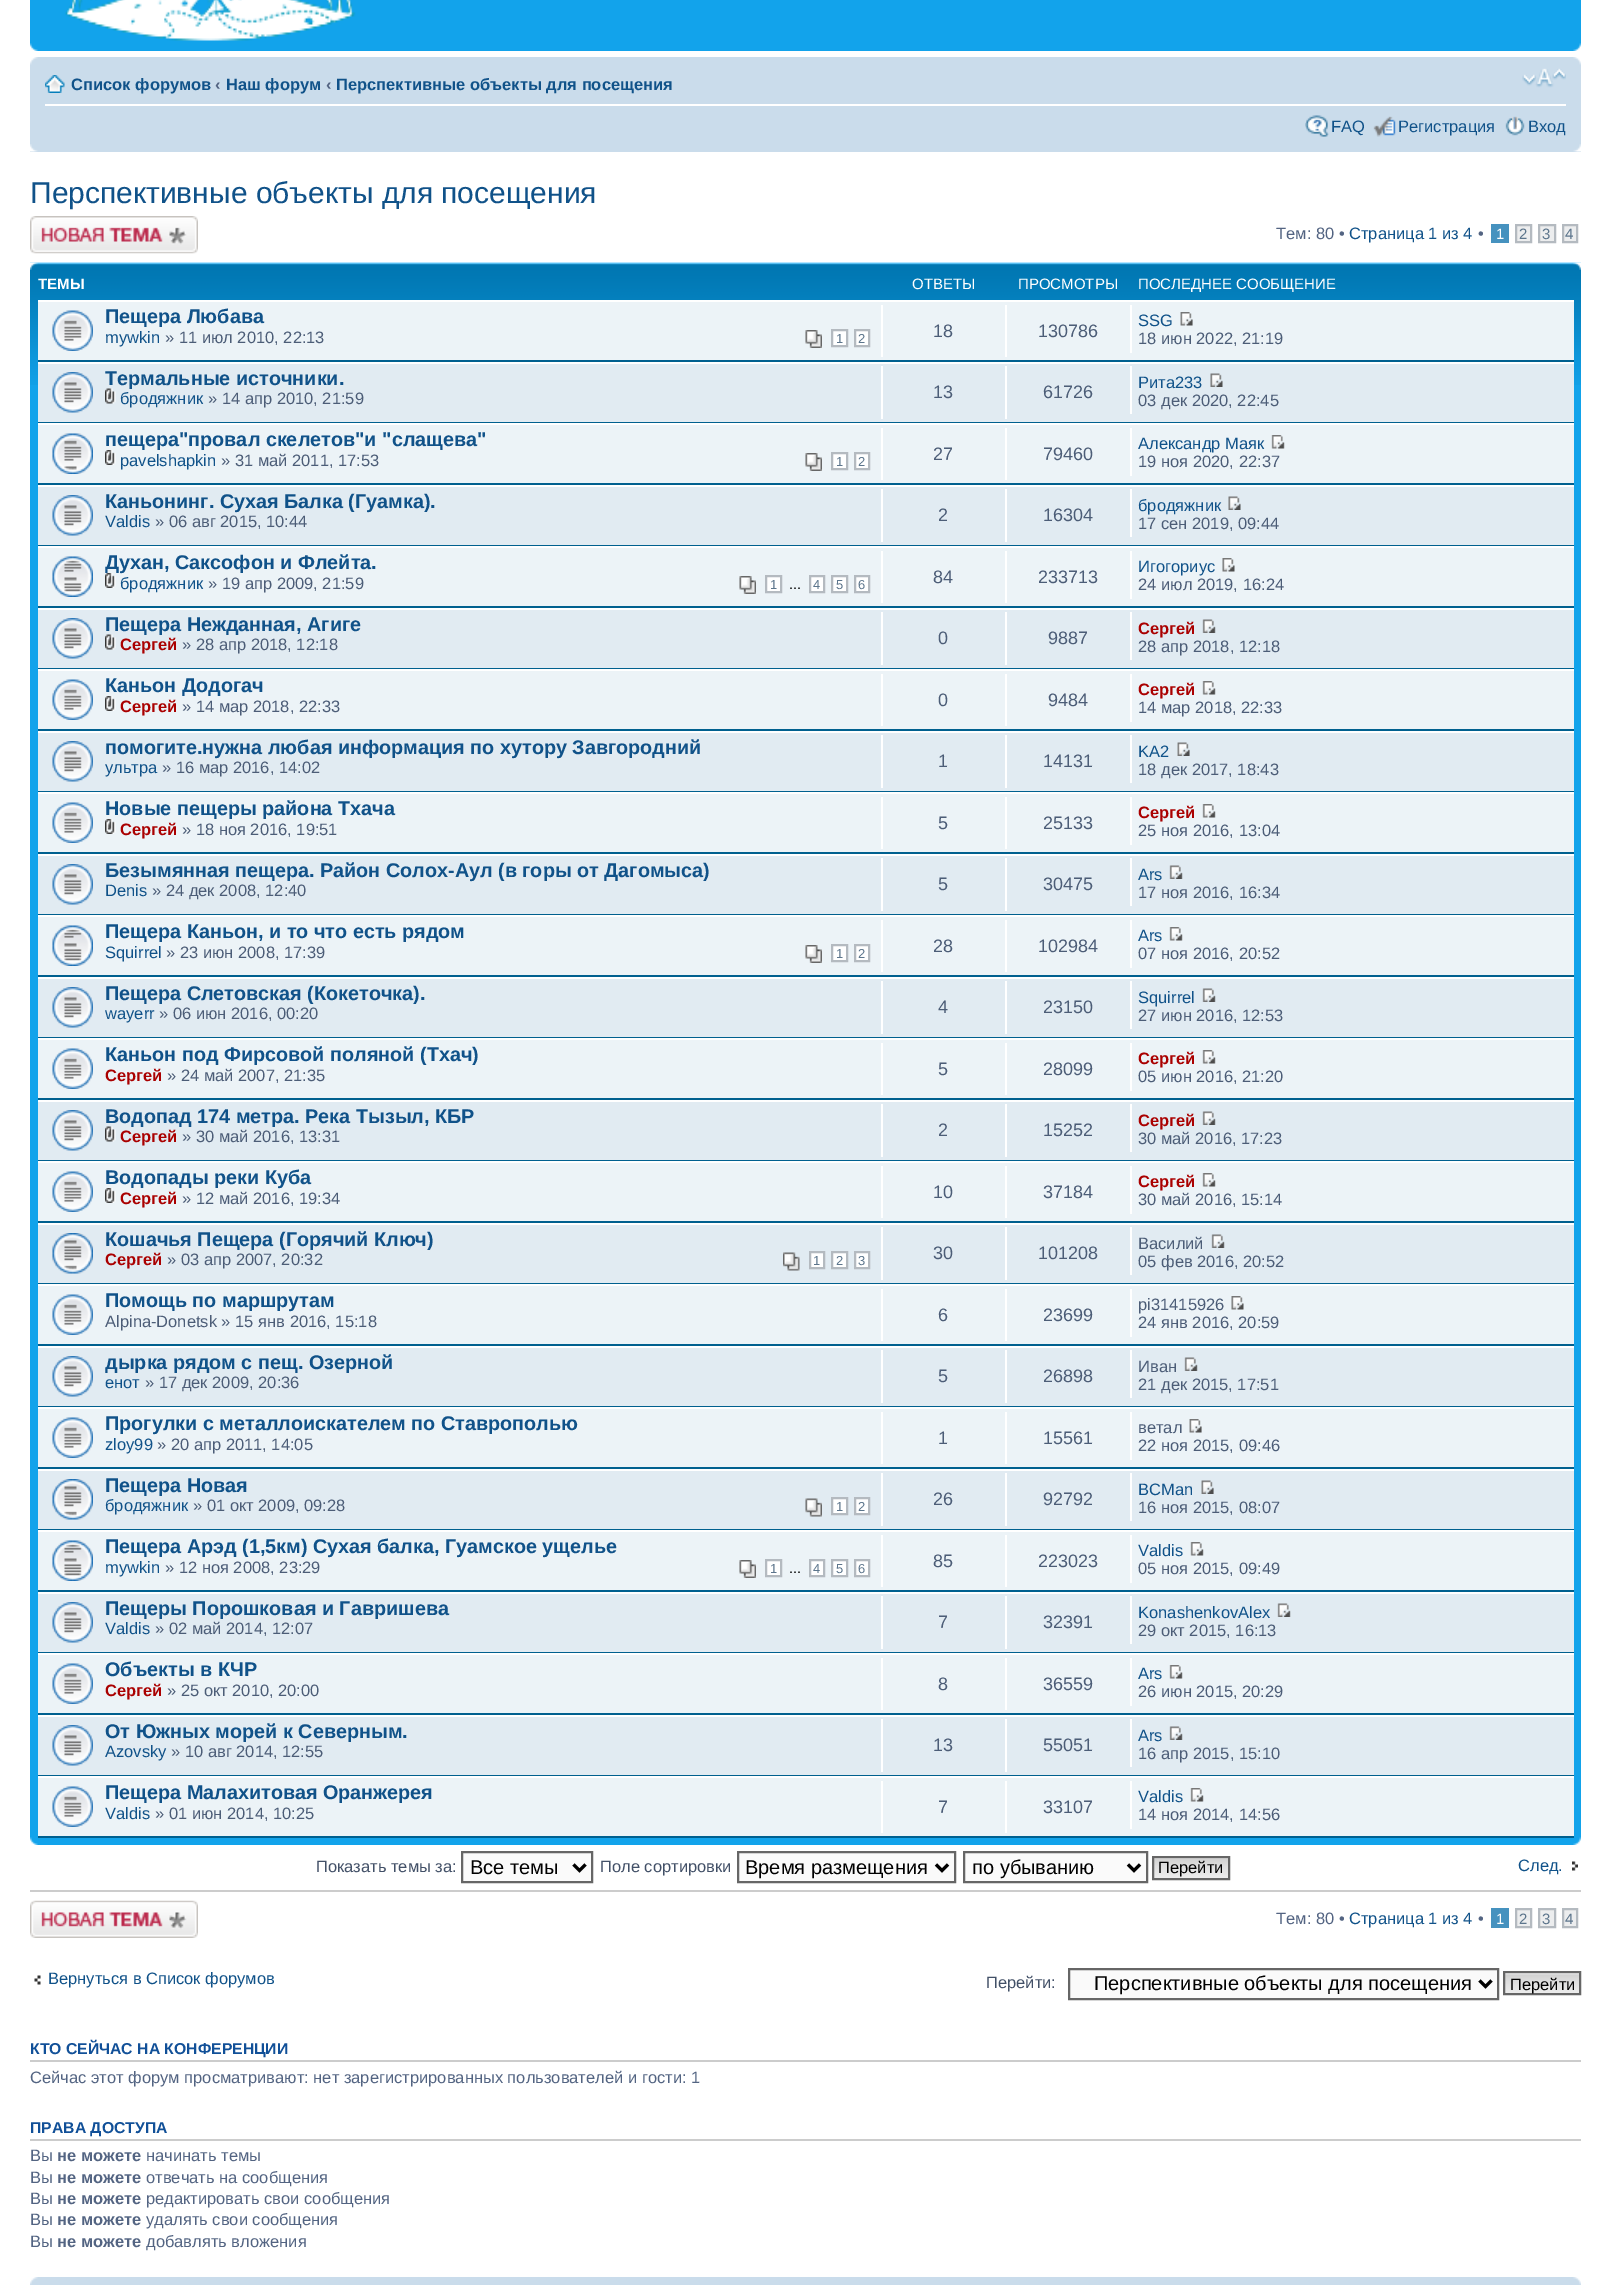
%!PS
<< /PageSize [1610 2285] >> setpagedevice
/rgb { 3 { 255 div 3 1 roll } repeat setrgbcolor } def
/font { [ exch dup neg 0 0 3 -1 roll 0 0 ] selectfont } def
/text { moveto show } def
/picture { 5 dict begin { /h /w /y /x /name } { exch def } forall
  gsave x y translate w h scale
  w h 8 [w 0 0 h 0 0] name (r) file false 3 colorimage grestore end } def
0 2285 translate 1 -1 scale
4 setmiterlimit
255 255 255 rgb
0 0 1610 2285 rectfill
18 163 235 rgb
30 0 1551 51 rectfill
(img_01.rgb) 65 0 291 41 picture
(img_02.rgb) 30 43 8 8 picture
(img_03.rgb) 1573 43 8 8 picture
202 220 235 rgb
30 57 1551 95 rectfill
(img_04.rgb) 30 57 8 8 picture
(img_05.rgb) 1573 57 8 8 picture
255 255 255 rgb
45 104 1521 2 rectfill
(img_06.rgb) 45 75 20 18 picture
(img_07.rgb) 1522 68 44 20 picture
(img_08.rgb) 1305 115 24 22 picture
(img_09.rgb) 1373 116 23 21 picture
(img_10.rgb) 1505 116 20 20 picture
(img_11.rgb) 30 144 8 8 picture
(img_12.rgb) 1573 144 8 8 picture
(img_13.rgb) 30 216 168 38 picture
70 146 191 rgb
1491 224 18 19 rectfill
236 237 238 rgb
1516 225 moveto 15 0 rlineto 0 17 rlineto -15 0 rlineto closepath gsave fill grestore
180 186 192 rgb
2 setlinewidth
stroke
236 237 238 rgb
1539 225 moveto 16 0 rlineto 0 17 rlineto -16 0 rlineto closepath gsave fill grestore
180 186 192 rgb
stroke
236 237 238 rgb
1563 225 moveto 14 0 rlineto 0 17 rlineto -14 0 rlineto closepath gsave fill grestore
180 186 192 rgb
stroke
18 163 235 rgb
30 385 1551 1460 rectfill
(img_14.rgb) 30 262 1551 123 picture
(img_15.rgb) 30 262 8 8 picture
(img_16.rgb) 1573 262 8 8 picture
236 243 247 rgb
38 302 1536 58 rectfill
255 255 255 rgb
38 300 1536 2 rectfill
0 96 143 rgb
38 360 1536 2 rectfill
(img_17.rgb) 52 310 41 41 picture
(img_18.rgb) 805 330 17 18 picture
255 255 255 rgb
832 330 moveto 15 0 rlineto 0 16 rlineto -15 0 rlineto closepath gsave fill grestore
180 186 192 rgb
stroke
255 255 255 rgb
855 330 moveto 14 0 rlineto 0 16 rlineto -14 0 rlineto closepath gsave fill grestore
180 186 192 rgb
stroke
255 255 255 rgb
881 305 2 52 rectfill
1005 305 2 52 rectfill
1130 305 2 48 rectfill
(img_19.rgb) 1180 312 13 14 picture
225 235 242 rgb
38 364 1536 58 rectfill
255 255 255 rgb
38 362 1536 2 rectfill
0 96 143 rgb
38 422 1536 1 rectfill
(img_20.rgb) 52 372 41 41 picture
255 255 255 rgb
881 366 2 53 rectfill
1005 366 2 53 rectfill
1130 366 2 48 rectfill
(img_22.rgb) 1210 373 13 14 picture
236 243 247 rgb
38 425 1536 58 rectfill
255 255 255 rgb
38 423 1536 2 rectfill
0 96 143 rgb
38 483 1536 2 rectfill
(img_23.rgb) 52 433 41 41 picture
(img_18.rgb) 805 453 17 18 picture
255 255 255 rgb
832 453 moveto 15 0 rlineto 0 16 rlineto -15 0 rlineto closepath gsave fill grestore
180 186 192 rgb
stroke
255 255 255 rgb
855 453 moveto 14 0 rlineto 0 16 rlineto -14 0 rlineto closepath gsave fill grestore
180 186 192 rgb
stroke
255 255 255 rgb
881 428 2 52 rectfill
1005 428 2 52 rectfill
1130 428 2 48 rectfill
(img_25.rgb) 1271 435 14 14 picture
225 235 242 rgb
38 487 1536 58 rectfill
255 255 255 rgb
38 485 1536 2 rectfill
0 96 143 rgb
38 545 1536 1 rectfill
(img_20.rgb) 52 495 41 41 picture
255 255 255 rgb
881 489 2 53 rectfill
1005 489 2 53 rectfill
1130 489 2 48 rectfill
(img_22.rgb) 1228 496 13 14 picture
236 243 247 rgb
38 548 1536 58 rectfill
255 255 255 rgb
38 546 1536 2 rectfill
0 96 143 rgb
38 606 1536 2 rectfill
(img_26.rgb) 52 556 41 41 picture
(img_27.rgb) 739 576 17 18 picture
255 255 255 rgb
766 576 moveto 15 0 rlineto 0 16 rlineto -15 0 rlineto closepath gsave fill grestore
180 186 192 rgb
stroke
255 255 255 rgb
810 576 moveto 14 0 rlineto 0 16 rlineto -14 0 rlineto closepath gsave fill grestore
180 186 192 rgb
stroke
255 255 255 rgb
832 576 moveto 15 0 rlineto 0 16 rlineto -15 0 rlineto closepath gsave fill grestore
180 186 192 rgb
stroke
255 255 255 rgb
855 576 moveto 14 0 rlineto 0 16 rlineto -14 0 rlineto closepath gsave fill grestore
180 186 192 rgb
stroke
255 255 255 rgb
881 551 2 52 rectfill
1005 551 2 52 rectfill
1130 551 2 48 rectfill
(img_28.rgb) 1222 558 13 14 picture
225 235 242 rgb
38 610 1536 58 rectfill
255 255 255 rgb
38 608 1536 2 rectfill
0 96 143 rgb
38 668 1536 1 rectfill
(img_20.rgb) 52 618 41 41 picture
255 255 255 rgb
881 612 2 53 rectfill
1005 612 2 53 rectfill
1130 612 2 48 rectfill
(img_29.rgb) 1202 619 14 14 picture
236 243 247 rgb
38 671 1536 58 rectfill
255 255 255 rgb
38 669 1536 2 rectfill
0 96 143 rgb
38 729 1536 2 rectfill
(img_17.rgb) 52 679 41 41 picture
(img_24.rgb) 105 696 11 15 picture
255 255 255 rgb
881 674 2 52 rectfill
1005 674 2 52 rectfill
1130 674 2 48 rectfill
(img_30.rgb) 1202 681 14 14 picture
225 235 242 rgb
38 733 1536 58 rectfill
255 255 255 rgb
38 731 1536 2 rectfill
0 96 143 rgb
38 791 1536 1 rectfill
(img_20.rgb) 52 741 41 41 picture
255 255 255 rgb
881 735 2 53 rectfill
1005 735 2 53 rectfill
1130 735 2 48 rectfill
(img_31.rgb) 1177 742 13 14 picture
236 243 247 rgb
38 794 1536 58 rectfill
255 255 255 rgb
38 792 1536 2 rectfill
0 96 143 rgb
38 852 1536 2 rectfill
(img_17.rgb) 52 802 41 41 picture
255 255 255 rgb
881 797 2 52 rectfill
1005 797 2 52 rectfill
1130 797 2 48 rectfill
(img_30.rgb) 1202 804 14 14 picture
225 235 242 rgb
38 856 1536 58 rectfill
255 255 255 rgb
38 854 1536 2 rectfill
0 96 143 rgb
38 914 1536 1 rectfill
(img_20.rgb) 52 864 41 41 picture
255 255 255 rgb
881 858 2 53 rectfill
1005 858 2 53 rectfill
1130 858 2 48 rectfill
(img_29.rgb) 1169 865 14 14 picture
236 243 247 rgb
38 917 1536 58 rectfill
255 255 255 rgb
38 915 1536 2 rectfill
0 96 143 rgb
38 975 1536 2 rectfill
(img_32.rgb) 52 925 41 41 picture
(img_18.rgb) 805 945 17 18 picture
255 255 255 rgb
832 945 moveto 15 0 rlineto 0 16 rlineto -15 0 rlineto closepath gsave fill grestore
180 186 192 rgb
stroke
255 255 255 rgb
855 945 moveto 14 0 rlineto 0 16 rlineto -14 0 rlineto closepath gsave fill grestore
180 186 192 rgb
stroke
255 255 255 rgb
881 920 2 52 rectfill
1005 920 2 52 rectfill
1130 920 2 48 rectfill
(img_30.rgb) 1169 927 14 14 picture
225 235 242 rgb
38 979 1536 58 rectfill
255 255 255 rgb
38 977 1536 2 rectfill
0 96 143 rgb
38 1037 1536 1 rectfill
(img_20.rgb) 52 987 41 41 picture
255 255 255 rgb
881 981 2 53 rectfill
1005 981 2 53 rectfill
1130 981 2 48 rectfill
(img_29.rgb) 1202 988 14 14 picture
236 243 247 rgb
38 1040 1536 58 rectfill
255 255 255 rgb
38 1038 1536 2 rectfill
0 96 143 rgb
38 1098 1536 2 rectfill
(img_17.rgb) 52 1048 41 41 picture
255 255 255 rgb
881 1043 2 52 rectfill
1005 1043 2 52 rectfill
1130 1043 2 48 rectfill
(img_30.rgb) 1202 1050 14 14 picture
225 235 242 rgb
38 1102 1536 58 rectfill
255 255 255 rgb
38 1100 1536 2 rectfill
0 96 143 rgb
38 1160 1536 1 rectfill
(img_20.rgb) 52 1110 41 41 picture
255 255 255 rgb
881 1104 2 53 rectfill
1005 1104 2 53 rectfill
1130 1104 2 48 rectfill
(img_29.rgb) 1202 1111 14 14 picture
236 243 247 rgb
38 1163 1536 58 rectfill
255 255 255 rgb
38 1161 1536 2 rectfill
0 96 143 rgb
38 1221 1536 2 rectfill
(img_17.rgb) 52 1171 41 41 picture
255 255 255 rgb
881 1166 2 52 rectfill
1005 1166 2 52 rectfill
1130 1166 2 48 rectfill
(img_30.rgb) 1202 1173 14 14 picture
225 235 242 rgb
38 1225 1536 58 rectfill
255 255 255 rgb
38 1223 1536 2 rectfill
0 96 143 rgb
38 1283 1536 1 rectfill
(img_33.rgb) 52 1233 41 41 picture
(img_34.rgb) 783 1252 17 19 picture
255 255 255 rgb
810 1252 moveto 14 0 rlineto 0 16 rlineto -14 0 rlineto closepath gsave fill grestore
180 186 192 rgb
stroke
255 255 255 rgb
832 1252 moveto 15 0 rlineto 0 16 rlineto -15 0 rlineto closepath gsave fill grestore
180 186 192 rgb
stroke
255 255 255 rgb
855 1252 moveto 14 0 rlineto 0 16 rlineto -14 0 rlineto closepath gsave fill grestore
180 186 192 rgb
stroke
255 255 255 rgb
881 1227 2 53 rectfill
1005 1227 2 53 rectfill
1130 1227 2 48 rectfill
(img_29.rgb) 1211 1234 14 14 picture
236 243 247 rgb
38 1286 1536 58 rectfill
255 255 255 rgb
38 1284 1536 2 rectfill
0 96 143 rgb
38 1344 1536 2 rectfill
(img_17.rgb) 52 1294 41 41 picture
255 255 255 rgb
881 1289 2 52 rectfill
1005 1289 2 52 rectfill
1130 1289 2 48 rectfill
(img_28.rgb) 1231 1296 13 14 picture
225 235 242 rgb
38 1348 1536 58 rectfill
255 255 255 rgb
38 1346 1536 2 rectfill
0 96 143 rgb
38 1406 1536 1 rectfill
(img_20.rgb) 52 1356 41 41 picture
255 255 255 rgb
881 1350 2 53 rectfill
1005 1350 2 53 rectfill
1130 1350 2 48 rectfill
(img_29.rgb) 1184 1357 14 14 picture
236 243 247 rgb
38 1409 1536 58 rectfill
255 255 255 rgb
38 1407 1536 2 rectfill
0 96 143 rgb
38 1467 1536 2 rectfill
(img_17.rgb) 52 1417 41 41 picture
255 255 255 rgb
881 1412 2 52 rectfill
1005 1412 2 52 rectfill
1130 1412 2 48 rectfill
(img_19.rgb) 1189 1419 13 14 picture
225 235 242 rgb
38 1471 1536 58 rectfill
255 255 255 rgb
38 1469 1536 2 rectfill
0 96 143 rgb
38 1529 1536 1 rectfill
(img_33.rgb) 52 1479 41 41 picture
(img_35.rgb) 805 1498 17 19 picture
255 255 255 rgb
832 1498 moveto 15 0 rlineto 0 16 rlineto -15 0 rlineto closepath gsave fill grestore
180 186 192 rgb
stroke
255 255 255 rgb
855 1498 moveto 14 0 rlineto 0 16 rlineto -14 0 rlineto closepath gsave fill grestore
180 186 192 rgb
stroke
255 255 255 rgb
881 1473 2 53 rectfill
1005 1473 2 53 rectfill
1130 1473 2 48 rectfill
(img_31.rgb) 1201 1480 13 14 picture
236 243 247 rgb
38 1532 1536 58 rectfill
255 255 255 rgb
38 1530 1536 2 rectfill
0 96 143 rgb
38 1590 1536 2 rectfill
(img_32.rgb) 52 1540 41 41 picture
(img_27.rgb) 739 1560 17 18 picture
255 255 255 rgb
766 1560 moveto 15 0 rlineto 0 16 rlineto -15 0 rlineto closepath gsave fill grestore
180 186 192 rgb
stroke
255 255 255 rgb
810 1560 moveto 14 0 rlineto 0 16 rlineto -14 0 rlineto closepath gsave fill grestore
180 186 192 rgb
stroke
255 255 255 rgb
832 1560 moveto 15 0 rlineto 0 16 rlineto -15 0 rlineto closepath gsave fill grestore
180 186 192 rgb
stroke
255 255 255 rgb
855 1560 moveto 14 0 rlineto 0 16 rlineto -14 0 rlineto closepath gsave fill grestore
180 186 192 rgb
stroke
255 255 255 rgb
881 1535 2 52 rectfill
1005 1535 2 52 rectfill
1130 1535 2 48 rectfill
(img_30.rgb) 1190 1542 14 14 picture
225 235 242 rgb
38 1594 1536 58 rectfill
255 255 255 rgb
38 1592 1536 2 rectfill
0 96 143 rgb
38 1652 1536 1 rectfill
(img_20.rgb) 52 1602 41 41 picture
255 255 255 rgb
881 1596 2 53 rectfill
1005 1596 2 53 rectfill
1130 1596 2 48 rectfill
(img_36.rgb) 1277 1603 14 14 picture
236 243 247 rgb
38 1655 1536 58 rectfill
255 255 255 rgb
38 1653 1536 2 rectfill
0 96 143 rgb
38 1713 1536 2 rectfill
(img_17.rgb) 52 1663 41 41 picture
255 255 255 rgb
881 1658 2 52 rectfill
1005 1658 2 52 rectfill
1130 1658 2 48 rectfill
(img_30.rgb) 1169 1665 14 14 picture
225 235 242 rgb
38 1717 1536 58 rectfill
255 255 255 rgb
38 1715 1536 2 rectfill
0 96 143 rgb
38 1775 1536 1 rectfill
(img_20.rgb) 52 1725 41 41 picture
255 255 255 rgb
881 1719 2 53 rectfill
1005 1719 2 53 rectfill
1130 1719 2 48 rectfill
(img_29.rgb) 1169 1726 14 14 picture
236 243 247 rgb
38 1778 1536 58 rectfill
255 255 255 rgb
38 1776 1536 2 rectfill
0 96 143 rgb
38 1836 1536 2 rectfill
(img_17.rgb) 52 1786 41 41 picture
255 255 255 rgb
881 1781 2 52 rectfill
1005 1781 2 52 rectfill
1130 1781 2 48 rectfill
(img_30.rgb) 1190 1788 14 14 picture
(img_02.rgb) 30 1837 8 8 picture
(img_37.rgb) 1573 1837 8 8 picture
250 250 250 rgb
462 1852 moveto 130 0 rlineto 0 30 rlineto -130 0 rlineto closepath gsave fill grestore
102 102 102 rgb
stroke
0 0 0 rgb
3 setlinewidth
573.5 1864.5 moveto 6 6 rlineto 6 -6 rlineto stroke
250 250 250 rgb
738 1852 moveto 217 0 rlineto 0 30 rlineto -217 0 rlineto closepath gsave fill grestore
102 102 102 rgb
2 setlinewidth
stroke
0 0 0 rgb
3 setlinewidth
936 1864.5 moveto 6 6 rlineto 6 -6 rlineto stroke
250 250 250 rgb
964 1852 moveto 183 0 rlineto 0 30 rlineto -183 0 rlineto closepath gsave fill grestore
102 102 102 rgb
2 setlinewidth
stroke
0 0 0 rgb
3 setlinewidth
1128 1864.5 moveto 6 6 rlineto 6 -6 rlineto stroke
(img_38.rgb) 1154 1858 74 20 picture
102 102 102 rgb
2 setlinewidth
1153 1857 76 22 rectstroke
(img_39.rgb) 1572 1861 6 10 picture
204 204 204 rgb
30 1890 1551 2 rectfill
(img_40.rgb) 30 1900 168 38 picture
70 146 191 rgb
1491 1908 18 20 rectfill
236 237 238 rgb
1516 1909 moveto 15 0 rlineto 0 18 rlineto -15 0 rlineto closepath gsave fill grestore
180 186 192 rgb
stroke
236 237 238 rgb
1539 1909 moveto 16 0 rlineto 0 18 rlineto -16 0 rlineto closepath gsave fill grestore
180 186 192 rgb
stroke
236 237 238 rgb
1563 1909 moveto 14 0 rlineto 0 18 rlineto -14 0 rlineto closepath gsave fill grestore
180 186 192 rgb
stroke
(img_41.rgb) 34 1975 7 10 picture
250 250 250 rgb
1069 1969 moveto 429 0 rlineto 0 30 rlineto -429 0 rlineto closepath gsave fill grestore
102 102 102 rgb
stroke
0 0 0 rgb
3 setlinewidth
1479.5 1980.5 moveto 6 6 rlineto 6 -6 rlineto stroke
250 250 250 rgb
1505 1973 74 1 rectfill
(img_42.rgb) 1505 1974 74 19 picture
102 102 102 rgb
2 setlinewidth
1504 1972 76 22 rectstroke
204 204 204 rgb
30 2060 1551 2 rectfill
30 2139 1551 2 rectfill
202 220 235 rgb
30 2277 1551 8 rectfill
(img_04.rgb) 30 2277 8 8 picture
(img_05.rgb) 1573 2277 8 8 picture
/LiberationSans-Bold 16.5 font
16 82 137 rgb
(Список форумов) 71 90 text
83 100 130 rgb
(‹) 215 90 text
16 82 137 rgb
(Наш форум) 226 90 text
83 100 130 rgb
(‹) 326 90 text
16 82 137 rgb
(Перспективные объекты для посещения) 336 90 text
/LiberationSans-Regular 16.5 font
(FAQ) 1331 132 text
(Регистрация) 1398 132 text
(Вход) 1528 132 text
/LiberationSans-Regular 30 font
(Перспективные объекты для посещения) 30 203 text
/LiberationSans-Regular 16.5 font
83 100 130 rgb
(Тем: 80 •) 1276 239 text
16 82 137 rgb
(Страница 1 из 4) 1349 239 text
83 100 130 rgb
(•) 1478 239 text
/LiberationSans-Regular 15 font
255 255 255 rgb
(1) 1496 239 text
92 117 140 rgb
(2) 1519 239 text
(3) 1542 239 text
(4) 1565 239 text
gsave
38 270 1536 30 rectclip
/LiberationSans-Bold 15 font
255 255 255 rgb
(ТЕМЫ) 38 289 text
grestore
255 255 255 rgb
(ОТВЕТЫ) 912 289 text
(ПРОСМОТРЫ) 1018 289 text
(ПОСЛЕДНЕЕ СООБЩЕНИЕ) 1138 289 text
/LiberationSans-Bold 19.8 font
16 82 137 rgb
(Пещера Любава) 105 323 text
/LiberationSans-Regular 16.5 font
(mywkin) 105 343 text
76 93 119 rgb
(» 11 июл 2010, 22:13) 165 343 text
/LiberationSans-Regular 13 font
92 117 140 rgb
(1) 836 343 text
(2) 858 343 text
/LiberationSans-Regular 18 font
76 93 119 rgb
(18) 933 337 text
(130786) 1038 337 text
/LiberationSans-Regular 16.5 font
16 82 137 rgb
(SSG) 1138 326 text
76 93 119 rgb
(18 июн 2022, 21:19) 1138 344 text
/LiberationSans-Bold 19.8 font
16 82 137 rgb
(Термальные источники.) 105 385 text
(img_21.rgb) 105 388 11 16 picture
/LiberationSans-Regular 16.5 font
(бродяжник) 120 404 text
76 93 119 rgb
(» 14 апр 2010, 21:59) 208 404 text
/LiberationSans-Regular 18 font
(13) 933 398 text
(61726) 1043 398 text
/LiberationSans-Regular 16.5 font
16 82 137 rgb
(Рита233) 1138 388 text
76 93 119 rgb
(03 дек 2020, 22:45) 1138 406 text
/LiberationSans-Bold 19.8 font
16 82 137 rgb
(пещера"провал скелетов"и "слащева") 105 446 text
(img_24.rgb) 105 450 11 15 picture
/LiberationSans-Regular 16.5 font
(pavelshapkin) 120 466 text
76 93 119 rgb
(» 31 май 2011, 17:53) 221 466 text
/LiberationSans-Regular 13 font
92 117 140 rgb
(1) 836 466 text
(2) 858 466 text
/LiberationSans-Regular 18 font
76 93 119 rgb
(27) 933 460 text
(79460) 1043 460 text
/LiberationSans-Regular 16.5 font
16 82 137 rgb
(Александр Маяк) 1138 449 text
76 93 119 rgb
(19 ноя 2020, 22:37) 1138 467 text
/LiberationSans-Bold 19.8 font
16 82 137 rgb
(Каньонинг. Сухая Балка \(Гуамка\).) 105 508 text
/LiberationSans-Regular 16.5 font
(Valdis) 105 527 text
76 93 119 rgb
(» 06 авг 2015, 10:44) 155 527 text
/LiberationSans-Regular 18 font
(2) 938 521 text
(16304) 1043 521 text
/LiberationSans-Regular 16.5 font
16 82 137 rgb
(бродяжник) 1138 511 text
76 93 119 rgb
(17 сен 2019, 09:44) 1138 529 text
/LiberationSans-Bold 19.8 font
16 82 137 rgb
(Духан, Саксофон и Флейта.) 105 569 text
(img_24.rgb) 105 573 11 15 picture
/LiberationSans-Regular 16.5 font
(бродяжник) 120 589 text
76 93 119 rgb
(» 19 апр 2009, 21:59) 208 589 text
/LiberationSans-Regular 13 font
92 117 140 rgb
(1) 770 589 text
/LiberationSans-Regular 15 font
0 0 0 rgb
(...) 789 589 text
/LiberationSans-Regular 13 font
92 117 140 rgb
(4) 813 589 text
(5) 836 589 text
(6) 858 589 text
/LiberationSans-Regular 18 font
76 93 119 rgb
(84) 933 583 text
(233713) 1038 583 text
/LiberationSans-Regular 16.5 font
16 82 137 rgb
(Игогориус) 1138 572 text
76 93 119 rgb
(24 июл 2019, 16:24) 1138 590 text
/LiberationSans-Bold 19.8 font
16 82 137 rgb
(Пещера Нежданная, Агиге) 105 631 text
(img_21.rgb) 105 634 11 16 picture
/LiberationSans-Bold 16.5 font
170 0 0 rgb
(Сергей) 120 650 text
/LiberationSans-Regular 16.5 font
76 93 119 rgb
(» 28 апр 2018, 12:18) 182 650 text
/LiberationSans-Regular 18 font
(0) 938 644 text
(9887) 1048 644 text
/LiberationSans-Bold 16.5 font
170 0 0 rgb
(Сергей) 1138 634 text
/LiberationSans-Regular 16.5 font
76 93 119 rgb
(28 апр 2018, 12:18) 1138 652 text
/LiberationSans-Bold 19.8 font
16 82 137 rgb
(Каньон Додогач) 105 692 text
/LiberationSans-Bold 16.5 font
170 0 0 rgb
(Сергей) 120 712 text
/LiberationSans-Regular 16.5 font
76 93 119 rgb
(» 14 мар 2018, 22:33) 182 712 text
/LiberationSans-Regular 18 font
(0) 938 706 text
(9484) 1048 706 text
/LiberationSans-Bold 16.5 font
170 0 0 rgb
(Сергей) 1138 695 text
/LiberationSans-Regular 16.5 font
76 93 119 rgb
(14 мар 2018, 22:33) 1138 713 text
/LiberationSans-Bold 19.8 font
16 82 137 rgb
(помогите.нужна любая информация по хутору Завгородний) 105 754 text
/LiberationSans-Regular 16.5 font
(ультра) 105 773 text
76 93 119 rgb
(» 16 мар 2016, 14:02) 162 773 text
/LiberationSans-Regular 18 font
(1) 938 767 text
(14131) 1043 767 text
/LiberationSans-Regular 16.5 font
16 82 137 rgb
(KA2) 1138 757 text
76 93 119 rgb
(18 дек 2017, 18:43) 1138 775 text
/LiberationSans-Bold 19.8 font
16 82 137 rgb
(Новые пещеры района Тхача) 105 815 text
(img_24.rgb) 105 819 11 15 picture
/LiberationSans-Bold 16.5 font
170 0 0 rgb
(Сергей) 120 835 text
/LiberationSans-Regular 16.5 font
76 93 119 rgb
(» 18 ноя 2016, 19:51) 182 835 text
/LiberationSans-Regular 18 font
(5) 938 829 text
(25133) 1043 829 text
/LiberationSans-Bold 16.5 font
170 0 0 rgb
(Сергей) 1138 818 text
/LiberationSans-Regular 16.5 font
76 93 119 rgb
(25 ноя 2016, 13:04) 1138 836 text
/LiberationSans-Bold 19.8 font
16 82 137 rgb
(Безымянная пещера. Район Солох-Аул \(в горы от Дагомыса\)) 105 877 text
/LiberationSans-Regular 16.5 font
(Denis) 105 896 text
76 93 119 rgb
(» 24 дек 2008, 12:40) 152 896 text
/LiberationSans-Regular 18 font
(5) 938 890 text
(30475) 1043 890 text
/LiberationSans-Regular 16.5 font
16 82 137 rgb
(Ars) 1138 880 text
76 93 119 rgb
(17 ноя 2016, 16:34) 1138 898 text
/LiberationSans-Bold 19.8 font
16 82 137 rgb
(Пещера Каньон, и то что есть рядом) 105 938 text
/LiberationSans-Regular 16.5 font
(Squirrel) 105 958 text
76 93 119 rgb
(» 23 июн 2008, 17:39) 166 958 text
/LiberationSans-Regular 13 font
92 117 140 rgb
(1) 836 958 text
(2) 858 958 text
/LiberationSans-Regular 18 font
76 93 119 rgb
(28) 933 952 text
(102984) 1038 952 text
/LiberationSans-Regular 16.5 font
16 82 137 rgb
(Ars) 1138 941 text
76 93 119 rgb
(07 ноя 2016, 20:52) 1138 959 text
/LiberationSans-Bold 19.8 font
16 82 137 rgb
(Пещера Слетовская \(Кокеточка\).) 105 1000 text
/LiberationSans-Regular 16.5 font
(wayerr) 105 1019 text
76 93 119 rgb
(» 06 июн 2016, 00:20) 159 1019 text
/LiberationSans-Regular 18 font
(4) 938 1013 text
(23150) 1043 1013 text
/LiberationSans-Regular 16.5 font
16 82 137 rgb
(Squirrel) 1138 1003 text
76 93 119 rgb
(27 июн 2016, 12:53) 1138 1021 text
/LiberationSans-Bold 19.8 font
16 82 137 rgb
(Каньон под Фирсовой поляной \(Тхач\)) 105 1061 text
/LiberationSans-Bold 16.5 font
170 0 0 rgb
(Сергей) 105 1081 text
/LiberationSans-Regular 16.5 font
76 93 119 rgb
(» 24 май 2007, 21:35) 167 1081 text
/LiberationSans-Regular 18 font
(5) 938 1075 text
(28099) 1043 1075 text
/LiberationSans-Bold 16.5 font
170 0 0 rgb
(Сергей) 1138 1064 text
/LiberationSans-Regular 16.5 font
76 93 119 rgb
(05 июн 2016, 21:20) 1138 1082 text
/LiberationSans-Bold 19.8 font
16 82 137 rgb
(Водопад 174 метра. Река Тызыл, КБР) 105 1123 text
(img_21.rgb) 105 1126 11 16 picture
/LiberationSans-Bold 16.5 font
170 0 0 rgb
(Сергей) 120 1142 text
/LiberationSans-Regular 16.5 font
76 93 119 rgb
(» 30 май 2016, 13:31) 182 1142 text
/LiberationSans-Regular 18 font
(2) 938 1136 text
(15252) 1043 1136 text
/LiberationSans-Bold 16.5 font
170 0 0 rgb
(Сергей) 1138 1126 text
/LiberationSans-Regular 16.5 font
76 93 119 rgb
(30 май 2016, 17:23) 1138 1144 text
/LiberationSans-Bold 19.8 font
16 82 137 rgb
(Водопады реки Куба) 105 1184 text
(img_24.rgb) 105 1188 11 15 picture
/LiberationSans-Bold 16.5 font
170 0 0 rgb
(Сергей) 120 1204 text
/LiberationSans-Regular 16.5 font
76 93 119 rgb
(» 12 май 2016, 19:34) 182 1204 text
/LiberationSans-Regular 18 font
(10) 933 1198 text
(37184) 1043 1198 text
/LiberationSans-Bold 16.5 font
170 0 0 rgb
(Сергей) 1138 1187 text
/LiberationSans-Regular 16.5 font
76 93 119 rgb
(30 май 2016, 15:14) 1138 1205 text
/LiberationSans-Bold 19.8 font
16 82 137 rgb
(Кошачья Пещера \(Горячий Ключ\)) 105 1246 text
/LiberationSans-Bold 16.5 font
170 0 0 rgb
(Сергей) 105 1265 text
/LiberationSans-Regular 16.5 font
76 93 119 rgb
(» 03 апр 2007, 20:32) 167 1265 text
/LiberationSans-Regular 13 font
92 117 140 rgb
(1) 813 1265 text
(2) 836 1265 text
(3) 858 1265 text
/LiberationSans-Regular 18 font
76 93 119 rgb
(30) 933 1259 text
(101208) 1038 1259 text
/LiberationSans-Regular 16.5 font
(Василий) 1138 1249 text
(05 фев 2016, 20:52) 1138 1267 text
/LiberationSans-Bold 19.8 font
16 82 137 rgb
(Помощь по маршрутам) 105 1307 text
/LiberationSans-Regular 16.5 font
76 93 119 rgb
(Alpina-Donetsk » 15 янв 2016, 15:18) 105 1327 text
/LiberationSans-Regular 18 font
(6) 938 1321 text
(23699) 1043 1321 text
/LiberationSans-Regular 16.5 font
(pi31415926) 1138 1310 text
(24 янв 2016, 20:59) 1138 1328 text
/LiberationSans-Bold 19.8 font
16 82 137 rgb
(дырка рядом с пещ. Озерной) 105 1369 text
/LiberationSans-Regular 16.5 font
(енот) 105 1388 text
76 93 119 rgb
(» 17 дек 2009, 20:36) 145 1388 text
/LiberationSans-Regular 18 font
(5) 938 1382 text
(26898) 1043 1382 text
/LiberationSans-Regular 16.5 font
(Иван) 1138 1372 text
(21 дек 2015, 17:51) 1138 1390 text
/LiberationSans-Bold 19.8 font
16 82 137 rgb
(Прогулки с металлоискателем по Ставрополью) 105 1430 text
/LiberationSans-Regular 16.5 font
(zloy99) 105 1450 text
76 93 119 rgb
(» 20 апр 2011, 14:05) 157 1450 text
/LiberationSans-Regular 18 font
(1) 938 1444 text
(15561) 1043 1444 text
/LiberationSans-Regular 16.5 font
(ветал) 1138 1433 text
(22 ноя 2015, 09:46) 1138 1451 text
/LiberationSans-Bold 19.8 font
16 82 137 rgb
(Пещера Новая) 105 1492 text
/LiberationSans-Regular 16.5 font
(бродяжник) 105 1511 text
76 93 119 rgb
(» 01 окт 2009, 09:28) 193 1511 text
/LiberationSans-Regular 13 font
92 117 140 rgb
(1) 836 1511 text
(2) 858 1511 text
/LiberationSans-Regular 18 font
76 93 119 rgb
(26) 933 1505 text
(92792) 1043 1505 text
/LiberationSans-Regular 16.5 font
16 82 137 rgb
(BCMan) 1138 1495 text
76 93 119 rgb
(16 ноя 2015, 08:07) 1138 1513 text
/LiberationSans-Bold 19.8 font
16 82 137 rgb
(Пещера Арэд \(1,5км\) Сухая балка, Гуамское ущелье) 105 1553 text
/LiberationSans-Regular 16.5 font
(mywkin) 105 1573 text
76 93 119 rgb
(» 12 ноя 2008, 23:29) 165 1573 text
/LiberationSans-Regular 13 font
92 117 140 rgb
(1) 770 1573 text
/LiberationSans-Regular 15 font
0 0 0 rgb
(...) 789 1573 text
/LiberationSans-Regular 13 font
92 117 140 rgb
(4) 813 1573 text
(5) 836 1573 text
(6) 858 1573 text
/LiberationSans-Regular 18 font
76 93 119 rgb
(85) 933 1567 text
(223023) 1038 1567 text
/LiberationSans-Regular 16.5 font
16 82 137 rgb
(Valdis) 1138 1556 text
76 93 119 rgb
(05 ноя 2015, 09:49) 1138 1574 text
/LiberationSans-Bold 19.8 font
16 82 137 rgb
(Пещеры Порошковая и Гавришева) 105 1615 text
/LiberationSans-Regular 16.5 font
(Valdis) 105 1634 text
76 93 119 rgb
(» 02 май 2014, 12:07) 155 1634 text
/LiberationSans-Regular 18 font
(7) 938 1628 text
(32391) 1043 1628 text
/LiberationSans-Regular 16.5 font
16 82 137 rgb
(KonashenkovAlex) 1138 1618 text
76 93 119 rgb
(29 окт 2015, 16:13) 1138 1636 text
/LiberationSans-Bold 19.8 font
16 82 137 rgb
(Объекты в КЧР) 105 1676 text
/LiberationSans-Bold 16.5 font
170 0 0 rgb
(Сергей) 105 1696 text
/LiberationSans-Regular 16.5 font
76 93 119 rgb
(» 25 окт 2010, 20:00) 167 1696 text
/LiberationSans-Regular 18 font
(8) 938 1690 text
(36559) 1043 1690 text
/LiberationSans-Regular 16.5 font
16 82 137 rgb
(Ars) 1138 1679 text
76 93 119 rgb
(26 июн 2015, 20:29) 1138 1697 text
/LiberationSans-Bold 19.8 font
16 82 137 rgb
(От Южных морей к Северным.) 105 1738 text
/LiberationSans-Regular 16.5 font
(Azovsky) 105 1757 text
76 93 119 rgb
(» 10 авг 2014, 12:55) 171 1757 text
/LiberationSans-Regular 18 font
(13) 933 1751 text
(55051) 1043 1751 text
/LiberationSans-Regular 16.5 font
16 82 137 rgb
(Ars) 1138 1741 text
76 93 119 rgb
(16 апр 2015, 15:10) 1138 1759 text
/LiberationSans-Bold 19.8 font
16 82 137 rgb
(Пещера Малахитовая Оранжерея) 105 1799 text
/LiberationSans-Regular 16.5 font
(Valdis) 105 1819 text
76 93 119 rgb
(» 01 июн 2014, 10:25) 155 1819 text
/LiberationSans-Regular 18 font
(7) 938 1813 text
(33107) 1043 1813 text
/LiberationSans-Regular 16.5 font
16 82 137 rgb
(Valdis) 1138 1802 text
76 93 119 rgb
(14 ноя 2014, 14:56) 1138 1820 text
66 80 103 rgb
(Показать темы за:) 316 1872 text
/LiberationSans-Regular 20 font
0 0 0 rgb
(Все темы) 470 1874 text
/LiberationSans-Regular 16.5 font
66 80 103 rgb
(Поле сортировки) 600 1872 text
/LiberationSans-Regular 20 font
0 0 0 rgb
(Время размещения) 745 1874 text
(по убыванию) 972 1874 text
/LiberationSans-Regular 16.5 font
(Перейти) 1158 1873 text
16 82 137 rgb
(След.) 1518 1871 text
83 100 130 rgb
(Тем: 80 •) 1276 1924 text
16 82 137 rgb
(Страница 1 из 4) 1349 1924 text
83 100 130 rgb
(•) 1478 1924 text
/LiberationSans-Regular 15 font
255 255 255 rgb
(1) 1496 1924 text
92 117 140 rgb
(2) 1519 1924 text
(3) 1542 1924 text
(4) 1565 1924 text
/LiberationSans-Regular 16.5 font
16 82 137 rgb
(Вернуться в Список форумов) 48 1984 text
66 80 103 rgb
(Перейти:) 986 1988 text
/LiberationSans-Regular 20 font
0 0 0 rgb
(Перспективные объекты для посещения) 1094 1990 text
/LiberationSans-Regular 16.5 font
(Перейти) 1510 1990 text
/LiberationSans-Bold 15.75 font
17 80 152 rgb
(КТО СЕЙЧАС НА КОНФЕРЕНЦИИ) 30 2054 text
/LiberationSans-Regular 16.5 font
83 100 130 rgb
(Сейчас этот форум просматривают: нет зарегистрированных пользователей и гости: 1) 30 2083 text
/LiberationSans-Bold 15.75 font
17 80 152 rgb
(ПРАВА ДОСТУПА) 30 2133 text
/LiberationSans-Regular 16.5 font
83 100 130 rgb
(Вы) 30 2161 text
/LiberationSans-Bold 16.5 font
(не можете) 57 2161 text
/LiberationSans-Regular 16.5 font
(начинать темы) 146 2161 text
(Вы) 30 2183 text
/LiberationSans-Bold 16.5 font
(не можете) 57 2183 text
/LiberationSans-Regular 16.5 font
(отвечать на сообщения) 146 2183 text
(Вы) 30 2204 text
/LiberationSans-Bold 16.5 font
(не можете) 57 2204 text
/LiberationSans-Regular 16.5 font
(редактировать свои сообщения) 146 2204 text
(Вы) 30 2225 text
/LiberationSans-Bold 16.5 font
(не можете) 57 2225 text
/LiberationSans-Regular 16.5 font
(удалять свои сообщения) 146 2225 text
(Вы) 30 2247 text
/LiberationSans-Bold 16.5 font
(не можете) 57 2247 text
/LiberationSans-Regular 16.5 font
(добавлять вложения) 146 2247 text
showpage
